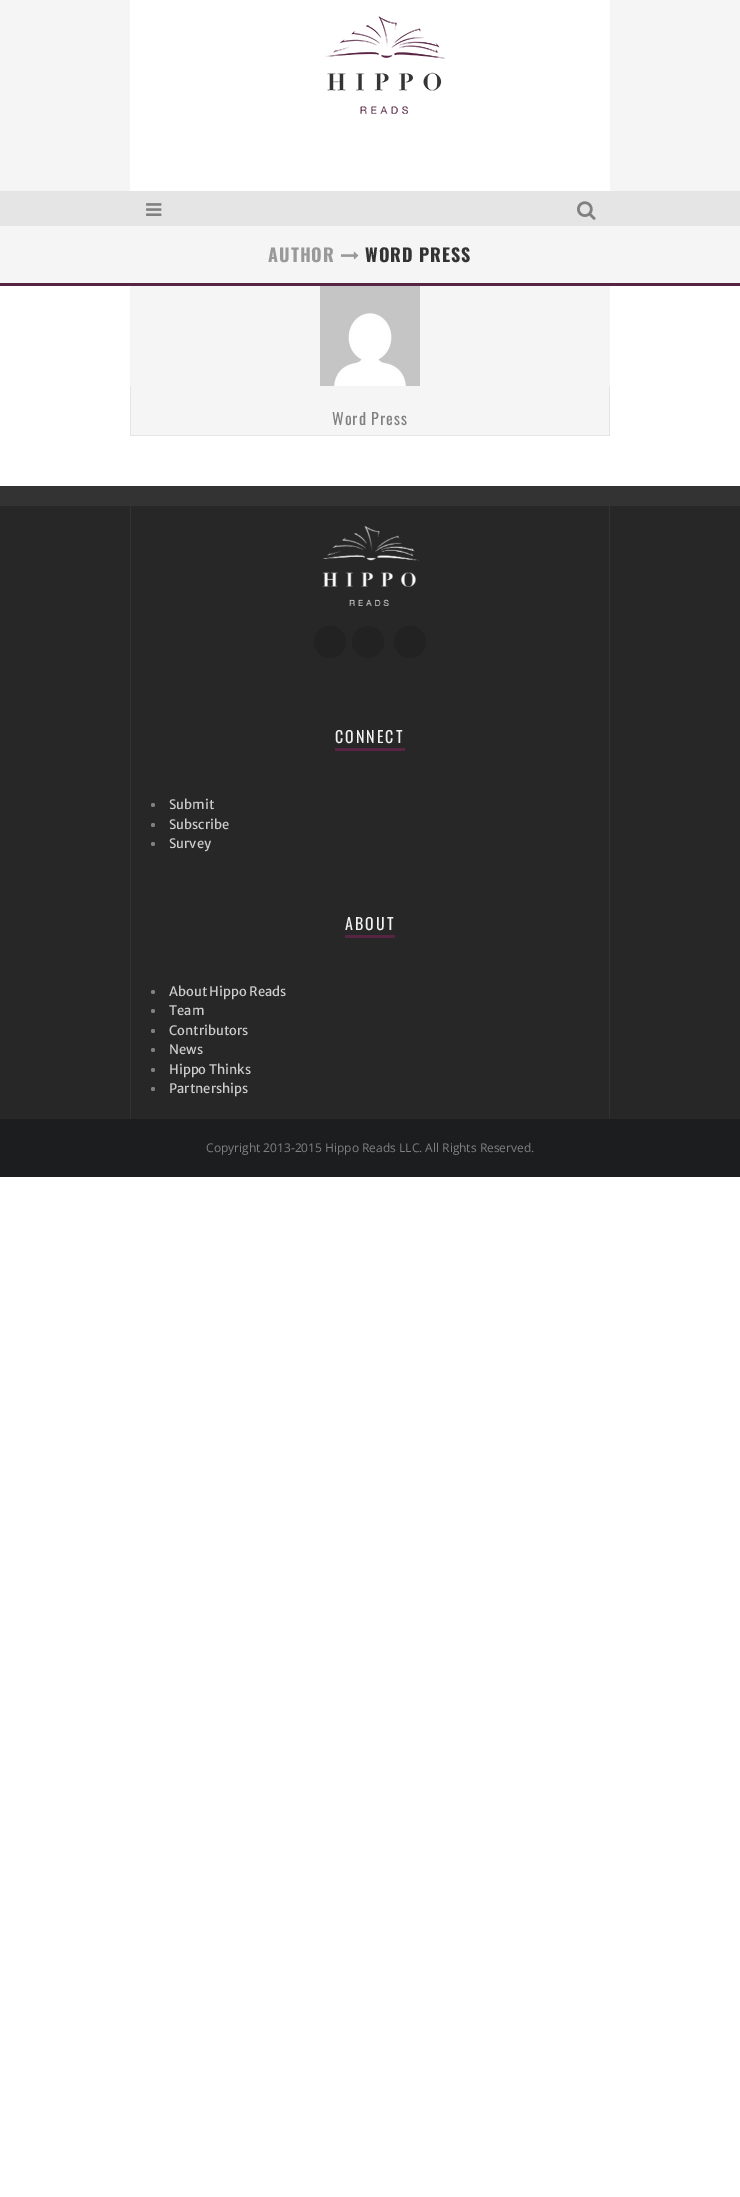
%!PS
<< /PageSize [740 2197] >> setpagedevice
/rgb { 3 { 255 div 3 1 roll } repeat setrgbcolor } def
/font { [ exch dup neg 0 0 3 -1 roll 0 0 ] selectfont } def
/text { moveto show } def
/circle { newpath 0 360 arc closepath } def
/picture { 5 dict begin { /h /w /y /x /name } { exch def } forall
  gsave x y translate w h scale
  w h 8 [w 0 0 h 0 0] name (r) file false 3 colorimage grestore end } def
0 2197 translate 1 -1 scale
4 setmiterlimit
255 255 255 rgb
0 0 740 2197 rectfill
245 245 245 rgb
0 0 740 191 rectfill
255 255 255 rgb
130 0 480 191 rectfill
(img_01.rgb) 325 16 121 98 picture
229 229 229 rgb
0 191 740 35 rectfill
(img_02.rgb) 146 203 16 13 picture
(img_03.rgb) 577 201 19 19 picture
245 245 245 rgb
0 226 740 57 rectfill
87 36 67 rgb
0 283 740 3 rectfill
(img_04.rgb) 341 251 18 9 picture
245 245 245 rgb
130 286 480 149 rectfill
(img_05.rgb) 320 286 100 100 picture
229 229 229 rgb
609 386 1 50 rectfill
130 435 480 1 rectfill
130 386 1 50 rectfill
39 39 39 rgb
0 506 740 613 rectfill
51 51 51 rgb
0 486 740 20 rectfill
609 506 1 613 rectfill
130 506 1 613 rectfill
(img_06.rgb) 322 525 98 81 picture
34 34 34 rgb
330 642 16 circle fill
368 642 16 circle fill
410 642 16 circle fill
87 36 67 rgb
335 748 70 3 rectfill
128 128 128 rgb
153 805 2 circle fill
153 825 2 circle fill
153 844 2 circle fill
87 36 67 rgb
345 935 50 3 rectfill
128 128 128 rgb
153 992 2 circle fill
153 1011 2 circle fill
153 1031 2 circle fill
153 1050 2 circle fill
153 1070 2 circle fill
153 1089 2 circle fill
28 29 30 rgb
0 1119 740 58 rectfill
/Oswald-Bold 18 font
153 153 153 rgb
268 262 moveto 1 0 (AUTHOR) ashow
51 51 51 rgb
365 262 moveto 1 0 (WORD PRESS) ashow
/Oswald-Regular 16 font
128 128 128 rgb
332 425 moveto 1 0 (Word Press) ashow
242 242 242 rgb
335 743 moveto 2 0 (CONNECT) ashow
/MerriweatherSans-Regular 13 font
204 204 204 rgb
(Submit) 169 809 text
(Subscribe) 169 829 text
(Survey) 169 848 text
/Oswald-Regular 16 font
242 242 242 rgb
345 930 moveto 2 0 (ABOUT) ashow
/MerriweatherSans-Regular 13 font
204 204 204 rgb
(About Hippo Reads) 169 996 text
(Team) 169 1015 text
(Contributors) 169 1035 text
(News) 169 1054 text
(Hippo Thinks) 169 1074 text
(Partnerships) 169 1093 text
/OpenSans-Regular 12 font
128 128 128 rgb
(Copyright 2013-2015 Hippo Reads LLC. All Rights Reserved.) 206 1152 text
showpage
